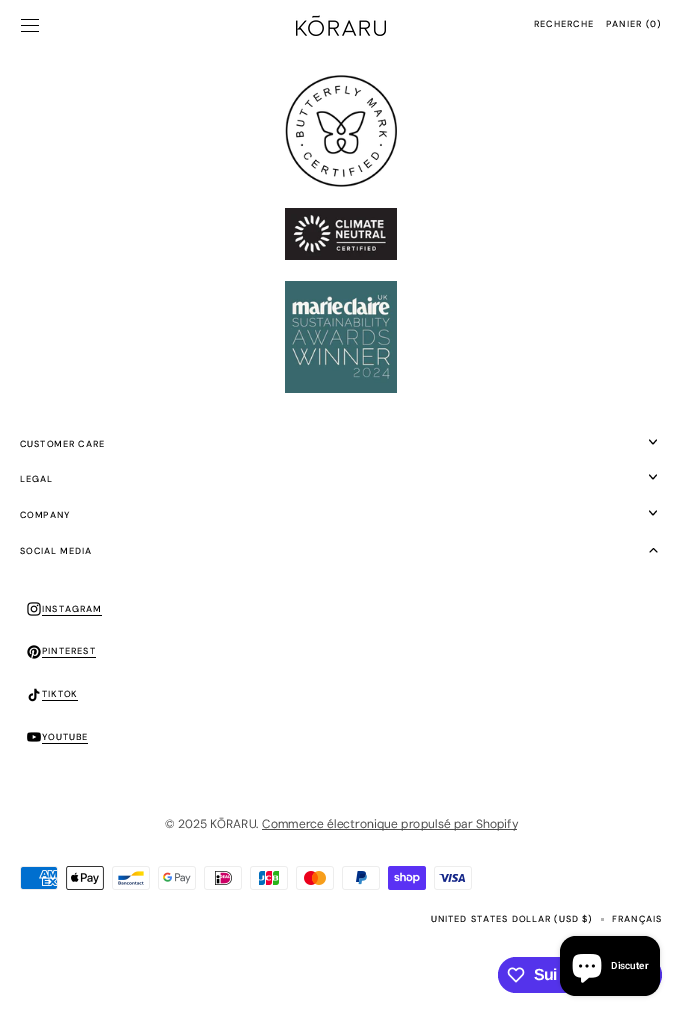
%!PS
<< /PageSize [682 1017] /PageUsesTransparency true >> setpagedevice
/rgb { 3 { 255 div 3 1 roll } repeat setrgbcolor } def
/font { [ exch dup neg 0 0 3 -1 roll 0 0 ] selectfont } def
/text { moveto show } def
/alpha { dup .setfillconstantalpha .setstrokeconstantalpha } def
/roundrect { 5 dict begin { /r /h /w /y /x } { exch def } forall
  x r add y moveto x w add y 2 copy h add r arct x w add y h add x 1 index r arct
  x y h add x y r arct x y 2 copy exch w add exch r arct closepath end } def
/shadow { 12 dict begin { /a /b /q /h /w /y /x } { exch def } forall gsave /was 0 def
  9 -2 -9 { dup b mul 4 div /e exch def 1 sub .425 mul 2.718 exch exp 1 add a .99 .min exch div /now exch def
    1 1 now sub 1 was sub div sub alpha /was now def
    w h .min e 2 mul add 0 gt { x e sub y e sub w e 2 mul add h e 2 mul add
      q e add b .6 mul add w h .min 2 div e add .min 0 .max roundrect fill } if } for grestore end } def
/picture { 5 dict begin { /h /w /y /x /name } { exch def } forall
  gsave x y translate w h scale
  w h 8 [w 0 0 h 0 0] name (r) file false 3 colorimage grestore end } def
0 .pushpdf14devicefilter
0 1017 translate 1 -1 scale
4 setmiterlimit
255 255 255 rgb
0 0 682 1017 rectfill
0 0 0 rgb
21 19 18 1 rectfill
21 25 18 1 rectfill
21 31 18 1 rectfill
(img_01.rgb) 296 15 90 21 picture
(img_02.rgb) 285 75 112 112 picture
(img_03.rgb) 285 208 112 52 picture
(img_04.rgb) 285 281 112 112 picture
1 setlinecap
1 setlinejoin
656.5 440 moveto -3.5 4 rlineto -3.5 -4 rlineto stroke
656.5 475 moveto -3.5 4 rlineto -3.5 -4 rlineto stroke
656.5 511 moveto -3.5 4 rlineto -3.5 -4 rlineto stroke
650 552 moveto 3.5 -3.5 rlineto 3.5 3.5 rlineto stroke
(img_05.rgb) 27 602 14 14 picture
42 615 60 1 rectfill
(img_06.rgb) 27 645 14 14 picture
42 657 54 1 rectfill
(img_07.rgb) 28 688 12 14 picture
42 700 36 1 rectfill
(img_08.rgb) 27 732 14 10 picture
42 743 46 1 rectfill
77 77 77 rgb
262 829 255 1 rectfill
(img_09.rgb) 20 866 38 24 picture
(img_10.rgb) 66 866 38 24 picture
(img_11.rgb) 112 866 38 24 picture
(img_12.rgb) 158 866 38 24 picture
(img_13.rgb) 204 866 38 24 picture
(img_14.rgb) 250 866 38 24 picture
(img_15.rgb) 296 866 38 24 picture
(img_16.rgb) 342 866 38 24 picture
(img_17.rgb) 388 866 38 24 picture
(img_18.rgb) 434 866 38 24 picture
179 179 179 rgb
601 918 3 3 rectfill
84 51 235 rgb
498 957 164 36 18 roundrect fill
(img_19.rgb) 507 967 18 16 picture
0 0 0 rgb
560 936 100 60 16 2.5 0.15 shadow
560 936 100 60 16 roundrect fill
(img_20.rgb) 572 954 30 29 picture
/DMSans-Medium 9 font
534 27 moveto 0.9 0 (RECHERCHE) ashow
606 27 moveto 0.9 0 (PANIER) ashow
646 27 moveto 0.9 0 (\(0\)) ashow
20 447 moveto 0.9 0 (CUSTOMER CARE) ashow
20 482 moveto 0.9 0 (LEGAL) ashow
20 518 moveto 0.9 0 (COMPANY) ashow
20 554 moveto 0.9 0 (SOCIAL MEDIA) ashow
42 612 moveto 0.9 0 (INSTAGRAM) ashow
42 654 moveto 0.9 0 (PINTEREST) ashow
42 697 moveto 0.9 0 (TIKTOK) ashow
42 740 moveto 0.9 0 (YOUTUBE) ashow
/DMSans-Regular 12 font
77 77 77 rgb
(© 2025 KŌRARU.) 165 828 text
(Commerce électronique propulsé par Shopify) 262 828 text
/DMSans-Medium 9 font
0 0 0 rgb
431 922 moveto 0.9 0 (UNITED STATES DOLLAR \(USD $\)) ashow
612 922 moveto 0.9 0 (FRANÇAIS) ashow
/LiberationSans-Bold 16 font
255 255 255 rgb
534 980 moveto -0.5 0 (Sui) ashow
/Roboto-SemiBold 10 font
(Discuter) 611 969 text
.poppdf14devicefilter showpage
